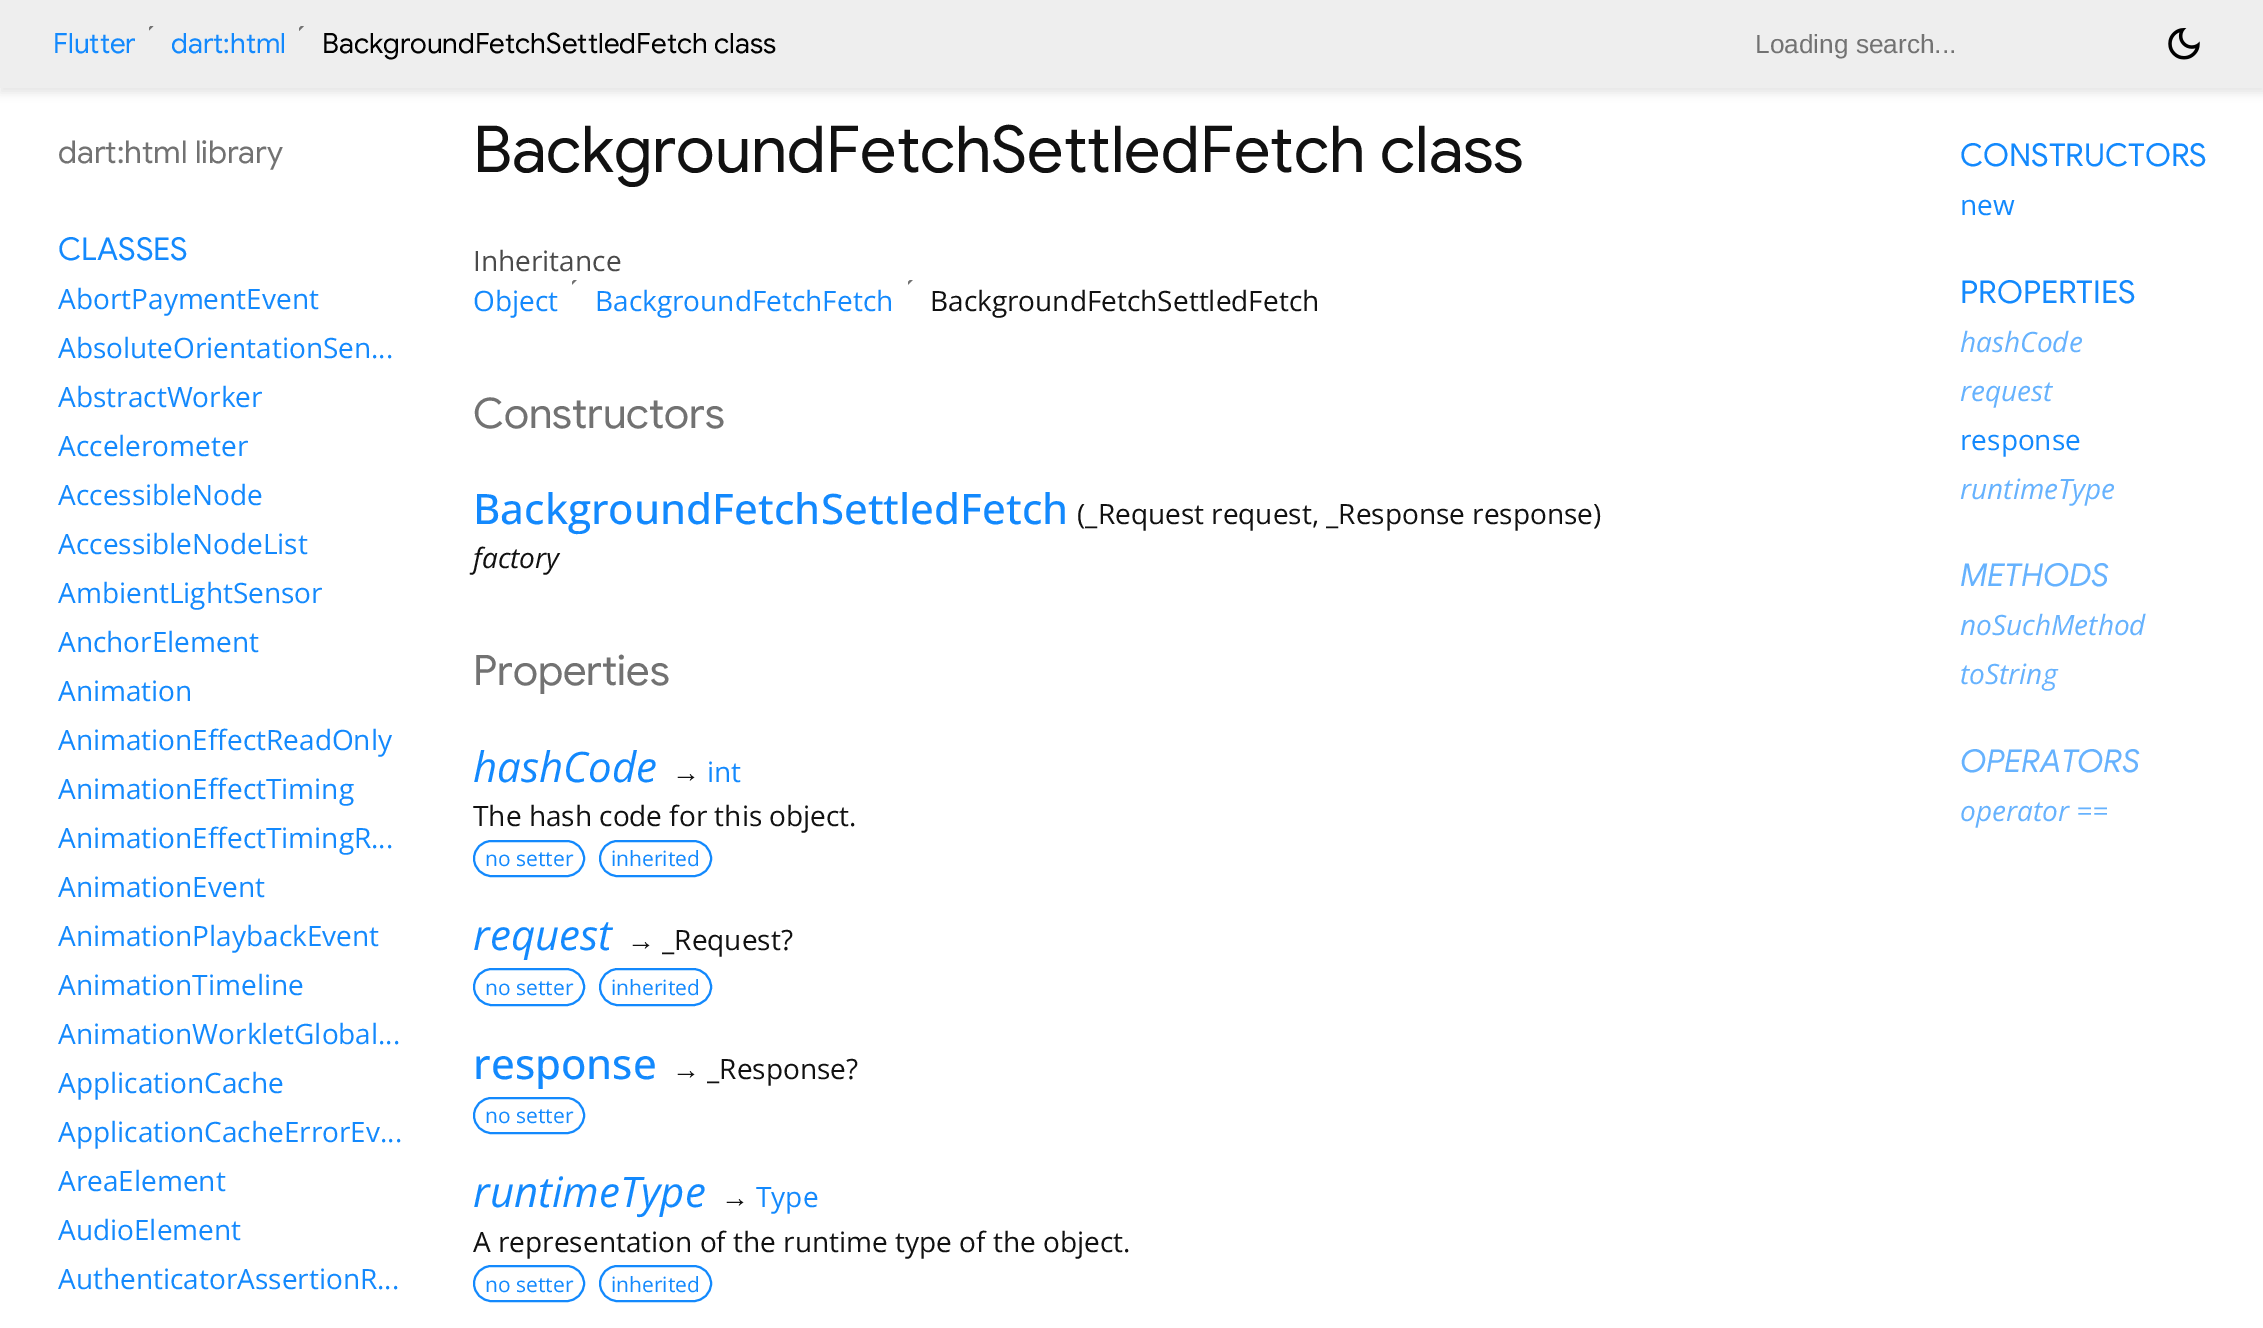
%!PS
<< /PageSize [2263 1328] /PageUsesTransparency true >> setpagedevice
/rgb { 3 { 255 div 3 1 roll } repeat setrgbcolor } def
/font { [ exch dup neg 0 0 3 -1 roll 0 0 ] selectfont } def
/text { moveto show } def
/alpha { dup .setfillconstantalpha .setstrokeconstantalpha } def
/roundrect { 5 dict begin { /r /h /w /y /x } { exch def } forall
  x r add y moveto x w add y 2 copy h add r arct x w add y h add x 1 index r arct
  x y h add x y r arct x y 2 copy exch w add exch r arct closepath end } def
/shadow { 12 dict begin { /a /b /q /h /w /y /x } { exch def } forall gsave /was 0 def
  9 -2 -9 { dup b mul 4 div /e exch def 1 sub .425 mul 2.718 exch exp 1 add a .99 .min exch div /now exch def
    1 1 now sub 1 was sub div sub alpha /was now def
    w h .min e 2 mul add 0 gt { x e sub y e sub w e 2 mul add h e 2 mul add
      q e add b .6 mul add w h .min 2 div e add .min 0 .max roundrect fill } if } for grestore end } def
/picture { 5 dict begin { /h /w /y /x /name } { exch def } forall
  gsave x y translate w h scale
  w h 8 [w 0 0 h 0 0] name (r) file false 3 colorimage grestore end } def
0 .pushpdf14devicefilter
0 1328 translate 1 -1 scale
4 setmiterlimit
255 255 255 rgb
0 0 2263 1328 rectfill
0 0 0 rgb
0 5 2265 88 0 4.5 0.1 shadow
238 238 238 rgb
0 0 2263 88 rectfill
(img_01.rgb) 149 26 5 5 picture
(img_02.rgb) 299 26 5 5 picture
(img_03.rgb) 2168 28 32 32 picture
(img_04.rgb) 572 280 5 5 picture
(img_04.rgb) 908 280 5 5 picture
19 137 253 rgb
2 setlinewidth
474 841 110 35 17.5 roundrect stroke
600 841 111 35 17.5 roundrect stroke
474 969 110 36 18 roundrect stroke
600 969 111 36 18 roundrect stroke
474 1098 110 35 17.5 roundrect stroke
474 1266 110 35 17.5 roundrect stroke
600 1266 111 35 17.5 roundrect stroke
/GoogleSans-Regular 28 font
(Flutter) 53 53 text
(dart:html) 171 53 text
0 0 0 rgb
(BackgroundFetchSettledFetch class) 322 53 text
/LiberationSans-Regular 26.25 font
114 114 114 rgb
(Loading search...) 1755 53 text
/GoogleSans-Regular 31.5 font
(dart:html library) 58 163 text
19 137 253 rgb
(CLASSES) 58 260 text
/OpenSans-Regular 28 font
(AbortPaymentEvent) 58 309 text
(AbsoluteOrientationSen...) 58 358 text
(AbstractWorker) 58 407 text
(Accelerometer) 58 456 text
(AccessibleNode) 58 505 text
(AccessibleNodeList) 58 554 text
(AmbientLightSensor) 58 603 text
(AnchorElement) 58 652 text
(Animation) 58 701 text
(AnimationEffectReadOnly) 58 750 text
(AnimationEffectTiming) 58 799 text
(AnimationEffectTimingR...) 58 848 text
(AnimationEvent) 58 897 text
(AnimationPlaybackEvent) 58 946 text
(AnimationTimeline) 58 995 text
(AnimationWorkletGlobal...) 58 1044 text
(ApplicationCache) 58 1093 text
(ApplicationCacheErrorEv...) 58 1142 text
(AreaElement) 58 1191 text
(AudioElement) 58 1240 text
(AuthenticatorAssertionR...) 58 1289 text
/GoogleSans-Regular 64.75 font
17 17 17 rgb
(BackgroundFetchSettledFetch class) 473 172 text
/OpenSans-Regular 28 font
74 74 74 rgb
(Inheritance) 473 271 text
19 137 253 rgb
(Object) 473 311 text
(BackgroundFetchFetch) 595 311 text
17 17 17 rgb
(BackgroundFetchSettledFetch) 930 311 text
/GoogleSans-Regular 42 font
114 114 114 rgb
(Constructors) 473 428 text
/OpenSans-Medium 42 font
19 137 253 rgb
(BackgroundFetchSettledFetch) 473 524 text
/OpenSans-Regular 28 font
17 17 17 rgb
(\(_Request request, _Response response\)) 1077 524 text
/OpenSans-Italic 28 font
(factory) 473 568 text
/GoogleSans-Regular 42 font
114 114 114 rgb
(Properties) 473 685 text
/OpenSans-Italic 42 font
19 137 253 rgb
(hashCode) 473 782 text
/LiberationSans-Regular 28 font
17 17 17 rgb
(→) 672 782 text
/OpenSans-Regular 28 font
19 137 253 rgb
(int) 707 782 text
17 17 17 rgb
(The hash code for this object.) 473 826 text
/OpenSans-Regular 21 font
19 137 253 rgb
(no setter) 485 866 text
(inherited) 611 866 text
/OpenSans-Italic 42 font
(request) 473 950 text
/LiberationSans-Regular 28 font
17 17 17 rgb
(→) 627 950 text
/OpenSans-Regular 28 font
(_Request?) 662 950 text
/OpenSans-Regular 21 font
19 137 253 rgb
(no setter) 485 995 text
(inherited) 611 995 text
/OpenSans-Medium 42 font
(response) 473 1079 text
/LiberationSans-Regular 28 font
17 17 17 rgb
(→) 672 1079 text
/OpenSans-Regular 28 font
(_Response?) 707 1079 text
/OpenSans-Regular 21 font
19 137 253 rgb
(no setter) 485 1123 text
/OpenSans-Italic 42 font
(runtimeType) 473 1207 text
/LiberationSans-Regular 28 font
17 17 17 rgb
(→) 721 1207 text
/OpenSans-Regular 28 font
19 137 253 rgb
(Type) 756 1207 text
17 17 17 rgb
(A representation of the runtime type of the object.) 473 1252 text
/OpenSans-Regular 21 font
19 137 253 rgb
(no setter) 485 1292 text
(inherited) 611 1292 text
/GoogleSans-Regular 31.5 font
(CONSTRUCTORS) 1960 166 text
/OpenSans-Regular 28 font
(new) 1960 215 text
/GoogleSans-Regular 31.5 font
(PROPERTIES) 1960 303 text
/OpenSans-Italic 28 font
102 178 254 rgb
(hashCode) 1960 352 text
(request) 1960 401 text
/OpenSans-Regular 28 font
19 137 253 rgb
(response) 1960 450 text
/OpenSans-Italic 28 font
102 178 254 rgb
(runtimeType) 1960 499 text
/GoogleSans-Italic 31.5 font
(METHODS) 1960 586 text
/OpenSans-Italic 28 font
(noSuchMethod) 1960 635 text
(toString) 1960 684 text
/GoogleSans-Italic 31.5 font
(OPERATORS) 1960 772 text
/OpenSans-Italic 28 font
(operator ==) 1960 821 text
.poppdf14devicefilter showpage
